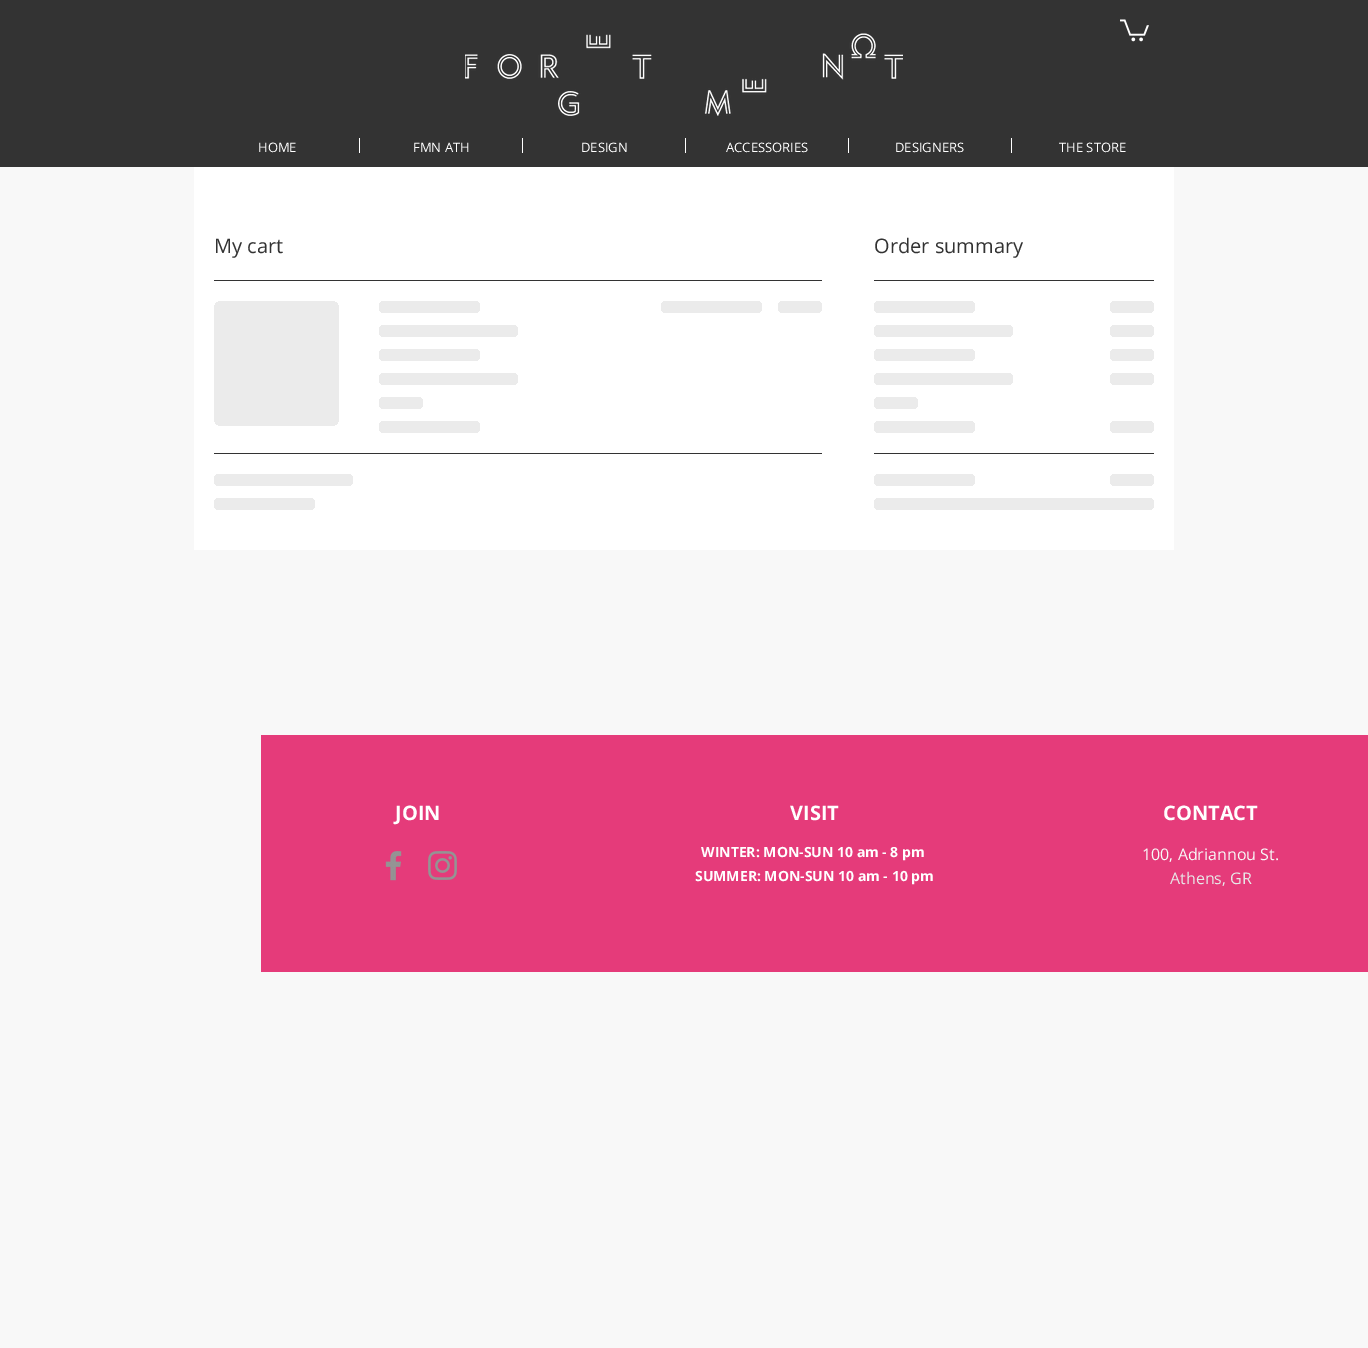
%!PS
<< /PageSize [1368 1348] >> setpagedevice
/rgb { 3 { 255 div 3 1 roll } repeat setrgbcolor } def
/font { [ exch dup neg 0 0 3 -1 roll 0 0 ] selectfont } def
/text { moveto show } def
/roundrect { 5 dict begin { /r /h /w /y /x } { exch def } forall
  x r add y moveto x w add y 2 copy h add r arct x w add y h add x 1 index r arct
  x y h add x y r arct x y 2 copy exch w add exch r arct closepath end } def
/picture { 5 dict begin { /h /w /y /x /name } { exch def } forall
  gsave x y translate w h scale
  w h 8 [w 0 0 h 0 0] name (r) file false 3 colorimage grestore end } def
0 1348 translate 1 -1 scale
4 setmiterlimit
248 248 248 rgb
0 0 1368 1348 rectfill
51 51 51 rgb
0 0 1368 167 rectfill
(img_01.rgb) 1120 19 29 23 picture
(img_02.rgb) 465 33 438 83 picture
255 255 255 rgb
359 138 1 15 rectfill
522 138 1 15 rectfill
685 138 1 15 rectfill
848 138 1 15 rectfill
1011 138 1 15 rectfill
194 167 980 383 rectfill
51 51 51 rgb
214 280 608 1 rectfill
gsave 214 301 125 125 8 roundrect clip newpath
<< /ShadingType 2 /ColorSpace /DeviceRGB /Coords [214 364 714 364] /Extend [true true] /Function << /FunctionType 3 /Domain [0 1] /Functions [<< /FunctionType 2 /Domain [0 1] /C0 [0.922 0.922 0.922] /C1 [0.922 0.922 0.922] /N 1 >> << /FunctionType 2 /Domain [0 1] /C0 [0.922 0.922 0.922] /C1 [0.839 0.839 0.839] /N 1 >> << /FunctionType 2 /Domain [0 1] /C0 [0.839 0.839 0.839] /C1 [0.922 0.922 0.922] /N 1 >> << /FunctionType 2 /Domain [0 1] /C0 [0.922 0.922 0.922] /C1 [0.922 0.922 0.922] /N 1 >>] /Bounds [0.25 0.37 0.63] /Encode [0 1 0 1 0 1 0 1] >> >> shfill grestore
gsave 379 301 101 12 6 roundrect clip newpath
<< /ShadingType 2 /ColorSpace /DeviceRGB /Coords [379 307 783 307] /Extend [true true] /Function << /FunctionType 3 /Domain [0 1] /Functions [<< /FunctionType 2 /Domain [0 1] /C0 [0.922 0.922 0.922] /C1 [0.922 0.922 0.922] /N 1 >> << /FunctionType 2 /Domain [0 1] /C0 [0.922 0.922 0.922] /C1 [0.839 0.839 0.839] /N 1 >> << /FunctionType 2 /Domain [0 1] /C0 [0.839 0.839 0.839] /C1 [0.922 0.922 0.922] /N 1 >> << /FunctionType 2 /Domain [0 1] /C0 [0.922 0.922 0.922] /C1 [0.922 0.922 0.922] /N 1 >>] /Bounds [0.25 0.37 0.63] /Encode [0 1 0 1 0 1 0 1] >> >> shfill grestore
gsave 379 325 139 12 6 roundrect clip newpath
<< /ShadingType 2 /ColorSpace /DeviceRGB /Coords [379 331 935 331] /Extend [true true] /Function << /FunctionType 3 /Domain [0 1] /Functions [<< /FunctionType 2 /Domain [0 1] /C0 [0.922 0.922 0.922] /C1 [0.922 0.922 0.922] /N 1 >> << /FunctionType 2 /Domain [0 1] /C0 [0.922 0.922 0.922] /C1 [0.839 0.839 0.839] /N 1 >> << /FunctionType 2 /Domain [0 1] /C0 [0.839 0.839 0.839] /C1 [0.922 0.922 0.922] /N 1 >> << /FunctionType 2 /Domain [0 1] /C0 [0.922 0.922 0.922] /C1 [0.922 0.922 0.922] /N 1 >>] /Bounds [0.25 0.37 0.63] /Encode [0 1 0 1 0 1 0 1] >> >> shfill grestore
gsave 379 349 101 12 6 roundrect clip newpath
<< /ShadingType 2 /ColorSpace /DeviceRGB /Coords [379 355 783 355] /Extend [true true] /Function << /FunctionType 3 /Domain [0 1] /Functions [<< /FunctionType 2 /Domain [0 1] /C0 [0.922 0.922 0.922] /C1 [0.922 0.922 0.922] /N 1 >> << /FunctionType 2 /Domain [0 1] /C0 [0.922 0.922 0.922] /C1 [0.839 0.839 0.839] /N 1 >> << /FunctionType 2 /Domain [0 1] /C0 [0.839 0.839 0.839] /C1 [0.922 0.922 0.922] /N 1 >> << /FunctionType 2 /Domain [0 1] /C0 [0.922 0.922 0.922] /C1 [0.922 0.922 0.922] /N 1 >>] /Bounds [0.25 0.37 0.63] /Encode [0 1 0 1 0 1 0 1] >> >> shfill grestore
gsave 379 373 139 12 6 roundrect clip newpath
<< /ShadingType 2 /ColorSpace /DeviceRGB /Coords [379 379 935 379] /Extend [true true] /Function << /FunctionType 3 /Domain [0 1] /Functions [<< /FunctionType 2 /Domain [0 1] /C0 [0.922 0.922 0.922] /C1 [0.922 0.922 0.922] /N 1 >> << /FunctionType 2 /Domain [0 1] /C0 [0.922 0.922 0.922] /C1 [0.839 0.839 0.839] /N 1 >> << /FunctionType 2 /Domain [0 1] /C0 [0.839 0.839 0.839] /C1 [0.922 0.922 0.922] /N 1 >> << /FunctionType 2 /Domain [0 1] /C0 [0.922 0.922 0.922] /C1 [0.922 0.922 0.922] /N 1 >>] /Bounds [0.25 0.37 0.63] /Encode [0 1 0 1 0 1 0 1] >> >> shfill grestore
gsave 379 397 44 12 6 roundrect clip newpath
<< /ShadingType 2 /ColorSpace /DeviceRGB /Coords [379 403 555 403] /Extend [true true] /Function << /FunctionType 3 /Domain [0 1] /Functions [<< /FunctionType 2 /Domain [0 1] /C0 [0.922 0.922 0.922] /C1 [0.922 0.922 0.922] /N 1 >> << /FunctionType 2 /Domain [0 1] /C0 [0.922 0.922 0.922] /C1 [0.839 0.839 0.839] /N 1 >> << /FunctionType 2 /Domain [0 1] /C0 [0.839 0.839 0.839] /C1 [0.922 0.922 0.922] /N 1 >> << /FunctionType 2 /Domain [0 1] /C0 [0.922 0.922 0.922] /C1 [0.922 0.922 0.922] /N 1 >>] /Bounds [0.25 0.37 0.63] /Encode [0 1 0 1 0 1 0 1] >> >> shfill grestore
gsave 379 421 101 12 6 roundrect clip newpath
<< /ShadingType 2 /ColorSpace /DeviceRGB /Coords [379 427 783 427] /Extend [true true] /Function << /FunctionType 3 /Domain [0 1] /Functions [<< /FunctionType 2 /Domain [0 1] /C0 [0.922 0.922 0.922] /C1 [0.922 0.922 0.922] /N 1 >> << /FunctionType 2 /Domain [0 1] /C0 [0.922 0.922 0.922] /C1 [0.839 0.839 0.839] /N 1 >> << /FunctionType 2 /Domain [0 1] /C0 [0.839 0.839 0.839] /C1 [0.922 0.922 0.922] /N 1 >> << /FunctionType 2 /Domain [0 1] /C0 [0.922 0.922 0.922] /C1 [0.922 0.922 0.922] /N 1 >>] /Bounds [0.25 0.37 0.63] /Encode [0 1 0 1 0 1 0 1] >> >> shfill grestore
gsave 661 301 101 12 6 roundrect clip newpath
<< /ShadingType 2 /ColorSpace /DeviceRGB /Coords [661 307 1065 307] /Extend [true true] /Function << /FunctionType 3 /Domain [0 1] /Functions [<< /FunctionType 2 /Domain [0 1] /C0 [0.922 0.922 0.922] /C1 [0.922 0.922 0.922] /N 1 >> << /FunctionType 2 /Domain [0 1] /C0 [0.922 0.922 0.922] /C1 [0.839 0.839 0.839] /N 1 >> << /FunctionType 2 /Domain [0 1] /C0 [0.839 0.839 0.839] /C1 [0.922 0.922 0.922] /N 1 >> << /FunctionType 2 /Domain [0 1] /C0 [0.922 0.922 0.922] /C1 [0.922 0.922 0.922] /N 1 >>] /Bounds [0.25 0.37 0.63] /Encode [0 1 0 1 0 1 0 1] >> >> shfill grestore
gsave 778 301 44 12 6 roundrect clip newpath
<< /ShadingType 2 /ColorSpace /DeviceRGB /Coords [778 307 954 307] /Extend [true true] /Function << /FunctionType 3 /Domain [0 1] /Functions [<< /FunctionType 2 /Domain [0 1] /C0 [0.922 0.922 0.922] /C1 [0.922 0.922 0.922] /N 1 >> << /FunctionType 2 /Domain [0 1] /C0 [0.922 0.922 0.922] /C1 [0.839 0.839 0.839] /N 1 >> << /FunctionType 2 /Domain [0 1] /C0 [0.839 0.839 0.839] /C1 [0.922 0.922 0.922] /N 1 >> << /FunctionType 2 /Domain [0 1] /C0 [0.922 0.922 0.922] /C1 [0.922 0.922 0.922] /N 1 >>] /Bounds [0.25 0.37 0.63] /Encode [0 1 0 1 0 1 0 1] >> >> shfill grestore
214 453 608 1 rectfill
gsave 214 474 139 12 6 roundrect clip newpath
<< /ShadingType 2 /ColorSpace /DeviceRGB /Coords [214 480 770 480] /Extend [true true] /Function << /FunctionType 3 /Domain [0 1] /Functions [<< /FunctionType 2 /Domain [0 1] /C0 [0.922 0.922 0.922] /C1 [0.922 0.922 0.922] /N 1 >> << /FunctionType 2 /Domain [0 1] /C0 [0.922 0.922 0.922] /C1 [0.839 0.839 0.839] /N 1 >> << /FunctionType 2 /Domain [0 1] /C0 [0.839 0.839 0.839] /C1 [0.922 0.922 0.922] /N 1 >> << /FunctionType 2 /Domain [0 1] /C0 [0.922 0.922 0.922] /C1 [0.922 0.922 0.922] /N 1 >>] /Bounds [0.25 0.37 0.63] /Encode [0 1 0 1 0 1 0 1] >> >> shfill grestore
gsave 214 498 101 12 6 roundrect clip newpath
<< /ShadingType 2 /ColorSpace /DeviceRGB /Coords [214 504 618 504] /Extend [true true] /Function << /FunctionType 3 /Domain [0 1] /Functions [<< /FunctionType 2 /Domain [0 1] /C0 [0.922 0.922 0.922] /C1 [0.922 0.922 0.922] /N 1 >> << /FunctionType 2 /Domain [0 1] /C0 [0.922 0.922 0.922] /C1 [0.839 0.839 0.839] /N 1 >> << /FunctionType 2 /Domain [0 1] /C0 [0.839 0.839 0.839] /C1 [0.922 0.922 0.922] /N 1 >> << /FunctionType 2 /Domain [0 1] /C0 [0.922 0.922 0.922] /C1 [0.922 0.922 0.922] /N 1 >>] /Bounds [0.25 0.37 0.63] /Encode [0 1 0 1 0 1 0 1] >> >> shfill grestore
874 280 280 1 rectfill
gsave 874 301 101 12 6 roundrect clip newpath
<< /ShadingType 2 /ColorSpace /DeviceRGB /Coords [874 307 1278 307] /Extend [true true] /Function << /FunctionType 3 /Domain [0 1] /Functions [<< /FunctionType 2 /Domain [0 1] /C0 [0.922 0.922 0.922] /C1 [0.922 0.922 0.922] /N 1 >> << /FunctionType 2 /Domain [0 1] /C0 [0.922 0.922 0.922] /C1 [0.839 0.839 0.839] /N 1 >> << /FunctionType 2 /Domain [0 1] /C0 [0.839 0.839 0.839] /C1 [0.922 0.922 0.922] /N 1 >> << /FunctionType 2 /Domain [0 1] /C0 [0.922 0.922 0.922] /C1 [0.922 0.922 0.922] /N 1 >>] /Bounds [0.25 0.37 0.63] /Encode [0 1 0 1 0 1 0 1] >> >> shfill grestore
gsave 1110 301 44 12 6 roundrect clip newpath
<< /ShadingType 2 /ColorSpace /DeviceRGB /Coords [1110 307 1286 307] /Extend [true true] /Function << /FunctionType 3 /Domain [0 1] /Functions [<< /FunctionType 2 /Domain [0 1] /C0 [0.922 0.922 0.922] /C1 [0.922 0.922 0.922] /N 1 >> << /FunctionType 2 /Domain [0 1] /C0 [0.922 0.922 0.922] /C1 [0.839 0.839 0.839] /N 1 >> << /FunctionType 2 /Domain [0 1] /C0 [0.839 0.839 0.839] /C1 [0.922 0.922 0.922] /N 1 >> << /FunctionType 2 /Domain [0 1] /C0 [0.922 0.922 0.922] /C1 [0.922 0.922 0.922] /N 1 >>] /Bounds [0.25 0.37 0.63] /Encode [0 1 0 1 0 1 0 1] >> >> shfill grestore
gsave 874 325 139 12 6 roundrect clip newpath
<< /ShadingType 2 /ColorSpace /DeviceRGB /Coords [874 331 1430 331] /Extend [true true] /Function << /FunctionType 3 /Domain [0 1] /Functions [<< /FunctionType 2 /Domain [0 1] /C0 [0.922 0.922 0.922] /C1 [0.922 0.922 0.922] /N 1 >> << /FunctionType 2 /Domain [0 1] /C0 [0.922 0.922 0.922] /C1 [0.839 0.839 0.839] /N 1 >> << /FunctionType 2 /Domain [0 1] /C0 [0.839 0.839 0.839] /C1 [0.922 0.922 0.922] /N 1 >> << /FunctionType 2 /Domain [0 1] /C0 [0.922 0.922 0.922] /C1 [0.922 0.922 0.922] /N 1 >>] /Bounds [0.25 0.37 0.63] /Encode [0 1 0 1 0 1 0 1] >> >> shfill grestore
gsave 1110 325 44 12 6 roundrect clip newpath
<< /ShadingType 2 /ColorSpace /DeviceRGB /Coords [1110 331 1286 331] /Extend [true true] /Function << /FunctionType 3 /Domain [0 1] /Functions [<< /FunctionType 2 /Domain [0 1] /C0 [0.922 0.922 0.922] /C1 [0.922 0.922 0.922] /N 1 >> << /FunctionType 2 /Domain [0 1] /C0 [0.922 0.922 0.922] /C1 [0.839 0.839 0.839] /N 1 >> << /FunctionType 2 /Domain [0 1] /C0 [0.839 0.839 0.839] /C1 [0.922 0.922 0.922] /N 1 >> << /FunctionType 2 /Domain [0 1] /C0 [0.922 0.922 0.922] /C1 [0.922 0.922 0.922] /N 1 >>] /Bounds [0.25 0.37 0.63] /Encode [0 1 0 1 0 1 0 1] >> >> shfill grestore
gsave 874 349 101 12 6 roundrect clip newpath
<< /ShadingType 2 /ColorSpace /DeviceRGB /Coords [874 355 1278 355] /Extend [true true] /Function << /FunctionType 3 /Domain [0 1] /Functions [<< /FunctionType 2 /Domain [0 1] /C0 [0.922 0.922 0.922] /C1 [0.922 0.922 0.922] /N 1 >> << /FunctionType 2 /Domain [0 1] /C0 [0.922 0.922 0.922] /C1 [0.839 0.839 0.839] /N 1 >> << /FunctionType 2 /Domain [0 1] /C0 [0.839 0.839 0.839] /C1 [0.922 0.922 0.922] /N 1 >> << /FunctionType 2 /Domain [0 1] /C0 [0.922 0.922 0.922] /C1 [0.922 0.922 0.922] /N 1 >>] /Bounds [0.25 0.37 0.63] /Encode [0 1 0 1 0 1 0 1] >> >> shfill grestore
gsave 1110 349 44 12 6 roundrect clip newpath
<< /ShadingType 2 /ColorSpace /DeviceRGB /Coords [1110 355 1286 355] /Extend [true true] /Function << /FunctionType 3 /Domain [0 1] /Functions [<< /FunctionType 2 /Domain [0 1] /C0 [0.922 0.922 0.922] /C1 [0.922 0.922 0.922] /N 1 >> << /FunctionType 2 /Domain [0 1] /C0 [0.922 0.922 0.922] /C1 [0.839 0.839 0.839] /N 1 >> << /FunctionType 2 /Domain [0 1] /C0 [0.839 0.839 0.839] /C1 [0.922 0.922 0.922] /N 1 >> << /FunctionType 2 /Domain [0 1] /C0 [0.922 0.922 0.922] /C1 [0.922 0.922 0.922] /N 1 >>] /Bounds [0.25 0.37 0.63] /Encode [0 1 0 1 0 1 0 1] >> >> shfill grestore
gsave 874 373 139 12 6 roundrect clip newpath
<< /ShadingType 2 /ColorSpace /DeviceRGB /Coords [874 379 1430 379] /Extend [true true] /Function << /FunctionType 3 /Domain [0 1] /Functions [<< /FunctionType 2 /Domain [0 1] /C0 [0.922 0.922 0.922] /C1 [0.922 0.922 0.922] /N 1 >> << /FunctionType 2 /Domain [0 1] /C0 [0.922 0.922 0.922] /C1 [0.839 0.839 0.839] /N 1 >> << /FunctionType 2 /Domain [0 1] /C0 [0.839 0.839 0.839] /C1 [0.922 0.922 0.922] /N 1 >> << /FunctionType 2 /Domain [0 1] /C0 [0.922 0.922 0.922] /C1 [0.922 0.922 0.922] /N 1 >>] /Bounds [0.25 0.37 0.63] /Encode [0 1 0 1 0 1 0 1] >> >> shfill grestore
gsave 1110 373 44 12 6 roundrect clip newpath
<< /ShadingType 2 /ColorSpace /DeviceRGB /Coords [1110 379 1286 379] /Extend [true true] /Function << /FunctionType 3 /Domain [0 1] /Functions [<< /FunctionType 2 /Domain [0 1] /C0 [0.922 0.922 0.922] /C1 [0.922 0.922 0.922] /N 1 >> << /FunctionType 2 /Domain [0 1] /C0 [0.922 0.922 0.922] /C1 [0.839 0.839 0.839] /N 1 >> << /FunctionType 2 /Domain [0 1] /C0 [0.839 0.839 0.839] /C1 [0.922 0.922 0.922] /N 1 >> << /FunctionType 2 /Domain [0 1] /C0 [0.922 0.922 0.922] /C1 [0.922 0.922 0.922] /N 1 >>] /Bounds [0.25 0.37 0.63] /Encode [0 1 0 1 0 1 0 1] >> >> shfill grestore
gsave 874 397 44 12 6 roundrect clip newpath
<< /ShadingType 2 /ColorSpace /DeviceRGB /Coords [874 403 1050 403] /Extend [true true] /Function << /FunctionType 3 /Domain [0 1] /Functions [<< /FunctionType 2 /Domain [0 1] /C0 [0.922 0.922 0.922] /C1 [0.922 0.922 0.922] /N 1 >> << /FunctionType 2 /Domain [0 1] /C0 [0.922 0.922 0.922] /C1 [0.839 0.839 0.839] /N 1 >> << /FunctionType 2 /Domain [0 1] /C0 [0.839 0.839 0.839] /C1 [0.922 0.922 0.922] /N 1 >> << /FunctionType 2 /Domain [0 1] /C0 [0.922 0.922 0.922] /C1 [0.922 0.922 0.922] /N 1 >>] /Bounds [0.25 0.37 0.63] /Encode [0 1 0 1 0 1 0 1] >> >> shfill grestore
gsave 874 421 101 12 6 roundrect clip newpath
<< /ShadingType 2 /ColorSpace /DeviceRGB /Coords [874 427 1278 427] /Extend [true true] /Function << /FunctionType 3 /Domain [0 1] /Functions [<< /FunctionType 2 /Domain [0 1] /C0 [0.922 0.922 0.922] /C1 [0.922 0.922 0.922] /N 1 >> << /FunctionType 2 /Domain [0 1] /C0 [0.922 0.922 0.922] /C1 [0.839 0.839 0.839] /N 1 >> << /FunctionType 2 /Domain [0 1] /C0 [0.839 0.839 0.839] /C1 [0.922 0.922 0.922] /N 1 >> << /FunctionType 2 /Domain [0 1] /C0 [0.922 0.922 0.922] /C1 [0.922 0.922 0.922] /N 1 >>] /Bounds [0.25 0.37 0.63] /Encode [0 1 0 1 0 1 0 1] >> >> shfill grestore
gsave 1110 421 44 12 6 roundrect clip newpath
<< /ShadingType 2 /ColorSpace /DeviceRGB /Coords [1110 427 1286 427] /Extend [true true] /Function << /FunctionType 3 /Domain [0 1] /Functions [<< /FunctionType 2 /Domain [0 1] /C0 [0.922 0.922 0.922] /C1 [0.922 0.922 0.922] /N 1 >> << /FunctionType 2 /Domain [0 1] /C0 [0.922 0.922 0.922] /C1 [0.839 0.839 0.839] /N 1 >> << /FunctionType 2 /Domain [0 1] /C0 [0.839 0.839 0.839] /C1 [0.922 0.922 0.922] /N 1 >> << /FunctionType 2 /Domain [0 1] /C0 [0.922 0.922 0.922] /C1 [0.922 0.922 0.922] /N 1 >>] /Bounds [0.25 0.37 0.63] /Encode [0 1 0 1 0 1 0 1] >> >> shfill grestore
874 453 280 1 rectfill
gsave 874 474 101 12 6 roundrect clip newpath
<< /ShadingType 2 /ColorSpace /DeviceRGB /Coords [874 480 1278 480] /Extend [true true] /Function << /FunctionType 3 /Domain [0 1] /Functions [<< /FunctionType 2 /Domain [0 1] /C0 [0.922 0.922 0.922] /C1 [0.922 0.922 0.922] /N 1 >> << /FunctionType 2 /Domain [0 1] /C0 [0.922 0.922 0.922] /C1 [0.839 0.839 0.839] /N 1 >> << /FunctionType 2 /Domain [0 1] /C0 [0.839 0.839 0.839] /C1 [0.922 0.922 0.922] /N 1 >> << /FunctionType 2 /Domain [0 1] /C0 [0.922 0.922 0.922] /C1 [0.922 0.922 0.922] /N 1 >>] /Bounds [0.25 0.37 0.63] /Encode [0 1 0 1 0 1 0 1] >> >> shfill grestore
gsave 1110 474 44 12 6 roundrect clip newpath
<< /ShadingType 2 /ColorSpace /DeviceRGB /Coords [1110 480 1286 480] /Extend [true true] /Function << /FunctionType 3 /Domain [0 1] /Functions [<< /FunctionType 2 /Domain [0 1] /C0 [0.922 0.922 0.922] /C1 [0.922 0.922 0.922] /N 1 >> << /FunctionType 2 /Domain [0 1] /C0 [0.922 0.922 0.922] /C1 [0.839 0.839 0.839] /N 1 >> << /FunctionType 2 /Domain [0 1] /C0 [0.839 0.839 0.839] /C1 [0.922 0.922 0.922] /N 1 >> << /FunctionType 2 /Domain [0 1] /C0 [0.922 0.922 0.922] /C1 [0.922 0.922 0.922] /N 1 >>] /Bounds [0.25 0.37 0.63] /Encode [0 1 0 1 0 1 0 1] >> >> shfill grestore
gsave 874 498 280 12 6 roundrect clip newpath
<< /ShadingType 2 /ColorSpace /DeviceRGB /Coords [874 504 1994 504] /Extend [true true] /Function << /FunctionType 3 /Domain [0 1] /Functions [<< /FunctionType 2 /Domain [0 1] /C0 [0.922 0.922 0.922] /C1 [0.922 0.922 0.922] /N 1 >> << /FunctionType 2 /Domain [0 1] /C0 [0.922 0.922 0.922] /C1 [0.839 0.839 0.839] /N 1 >> << /FunctionType 2 /Domain [0 1] /C0 [0.839 0.839 0.839] /C1 [0.922 0.922 0.922] /N 1 >> << /FunctionType 2 /Domain [0 1] /C0 [0.922 0.922 0.922] /C1 [0.922 0.922 0.922] /N 1 >>] /Bounds [0.25 0.37 0.63] /Encode [0 1 0 1 0 1 0 1] >> >> shfill grestore
229 59 122 rgb
261 735 1107 237 rectfill
(img_03.rgb) 385 851 17 30 picture
(img_04.rgb) 428 851 29 29 picture
/OpenSans-Regular 13 font
255 255 255 rgb
(HOME) 258 152 text
(FMN ATH) 413 152 text
(DESIGN) 581 152 text
(ACCESSORIES) 726 152 text
(DESIGNERS) 895 152 text
(THE STORE) 1059 152 text
/OpenSans-Regular 20 font
51 51 51 rgb
(My cart) 214 253 text
(Order summary) 874 253 text
/OpenSans-Bold 20 font
255 255 255 rgb
(JOIN) 395 820 text
(VISIT) 790 820 text
/OpenSans-Bold 14 font
(WINTER: MON-SUN 10 am - 8 pm) 701 857 text
(SUMMER: MON-SUN 10 am - 10 pm) 695 881 text
/OpenSans-Bold 20 font
(CONTACT) 1163 820 text
/OpenSans-Regular 16 font
248 248 248 rgb
(100, Adriannou St.) 1142 860 text
232 232 232 rgb
(Athens, GR) 1170 884 text
showpage
